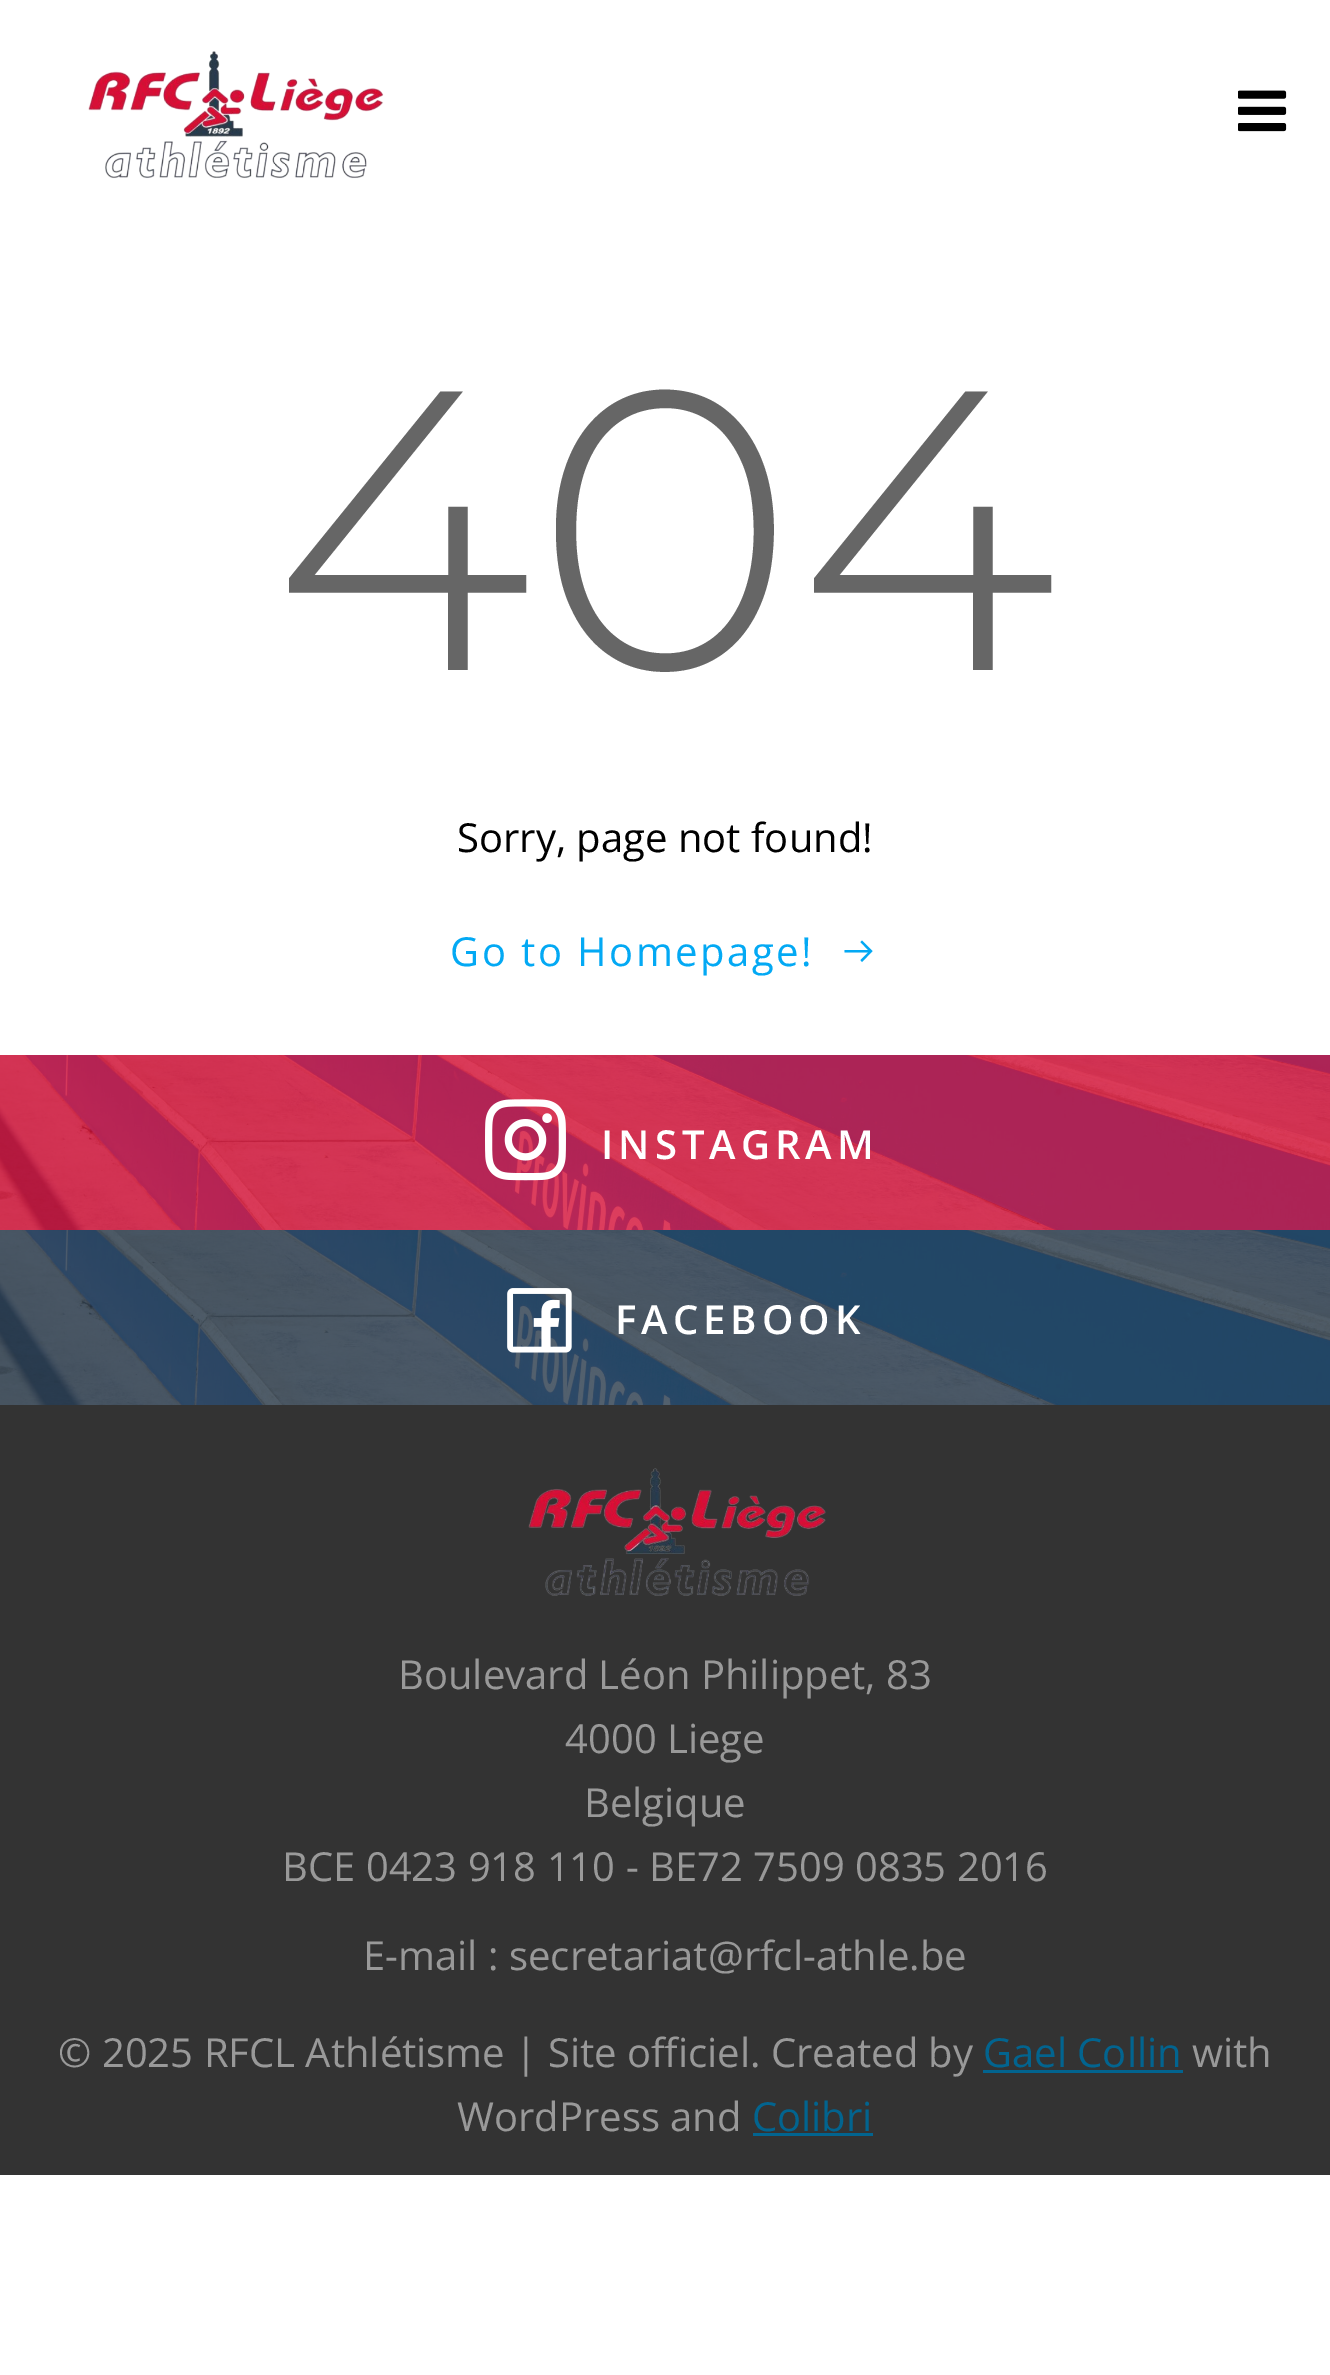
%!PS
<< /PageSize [1330 2375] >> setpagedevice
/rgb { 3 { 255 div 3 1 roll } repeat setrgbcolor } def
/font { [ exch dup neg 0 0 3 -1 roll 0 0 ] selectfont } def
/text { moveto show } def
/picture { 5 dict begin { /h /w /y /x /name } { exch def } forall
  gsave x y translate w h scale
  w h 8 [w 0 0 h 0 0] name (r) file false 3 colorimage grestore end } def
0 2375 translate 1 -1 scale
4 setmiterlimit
255 255 255 rgb
0 0 1330 2375 rectfill
(img_01.rgb) 88 51 296 128 picture
(img_02.rgb) 1238 90 49 42 picture
3 169 244 rgb
862 940.5 moveto 10.5 10.5 rlineto -10.5 11 rlineto -1.5 -2 rlineto 7.5 -7.5 rlineto -23.5 0 rlineto 0 -2.5 rlineto 23.5 0 rlineto -7.5 -8 rlineto closepath fill
(img_03.rgb) 0 1055 1330 175 picture
(img_04.rgb) 485 1099 81 82 picture
(img_05.rgb) 0 1230 1330 175 picture
(img_06.rgb) 507 1288 65 65 picture
51 51 51 rgb
0 1405 1330 770 rectfill
(img_07.rgb) 528 1468 298 128 picture
2 100 143 rgb
983 2070 200 3 rectfill
753 2133 120 3 rectfill
/Montserrat-Light 400 font
102 102 102 rgb
(404) 272 670 text
/OpenSans-Regular 40 font
0 0 0 rgb
(Sorry, page not found!) 457 852 text
3 169 244 rgb
450 966 moveto 2.5 0 (Go to Homepage!) ashow
/OpenSans-SemiBold 40 font
255 255 255 rgb
601 1159 moveto 5 0 (INSTAGRAM) ashow
615 1334 moveto 5 0 (FACEBOOK) ashow
/OpenSans-Regular 40 font
153 153 153 rgb
(Boulevard Léon Philippet, 83) 398 1689 text
(4000 Liege) 565 1753 text
(Belgique) 584 1817 text
(BCE 0423 918 110 - BE72 7509 0835 2016) 282 1881 text
(E-mail : secretariat@rfcl-athle.be) 363 1970 text
(© 2025 RFCL Athlétisme | Site officiel. Created by) 58 2067 text
2 100 143 rgb
(Gael Collin) 983 2067 text
153 153 153 rgb
(with) 1192 2067 text
(WordPress and) 457 2131 text
2 100 143 rgb
(Colibri) 752 2131 text
showpage
